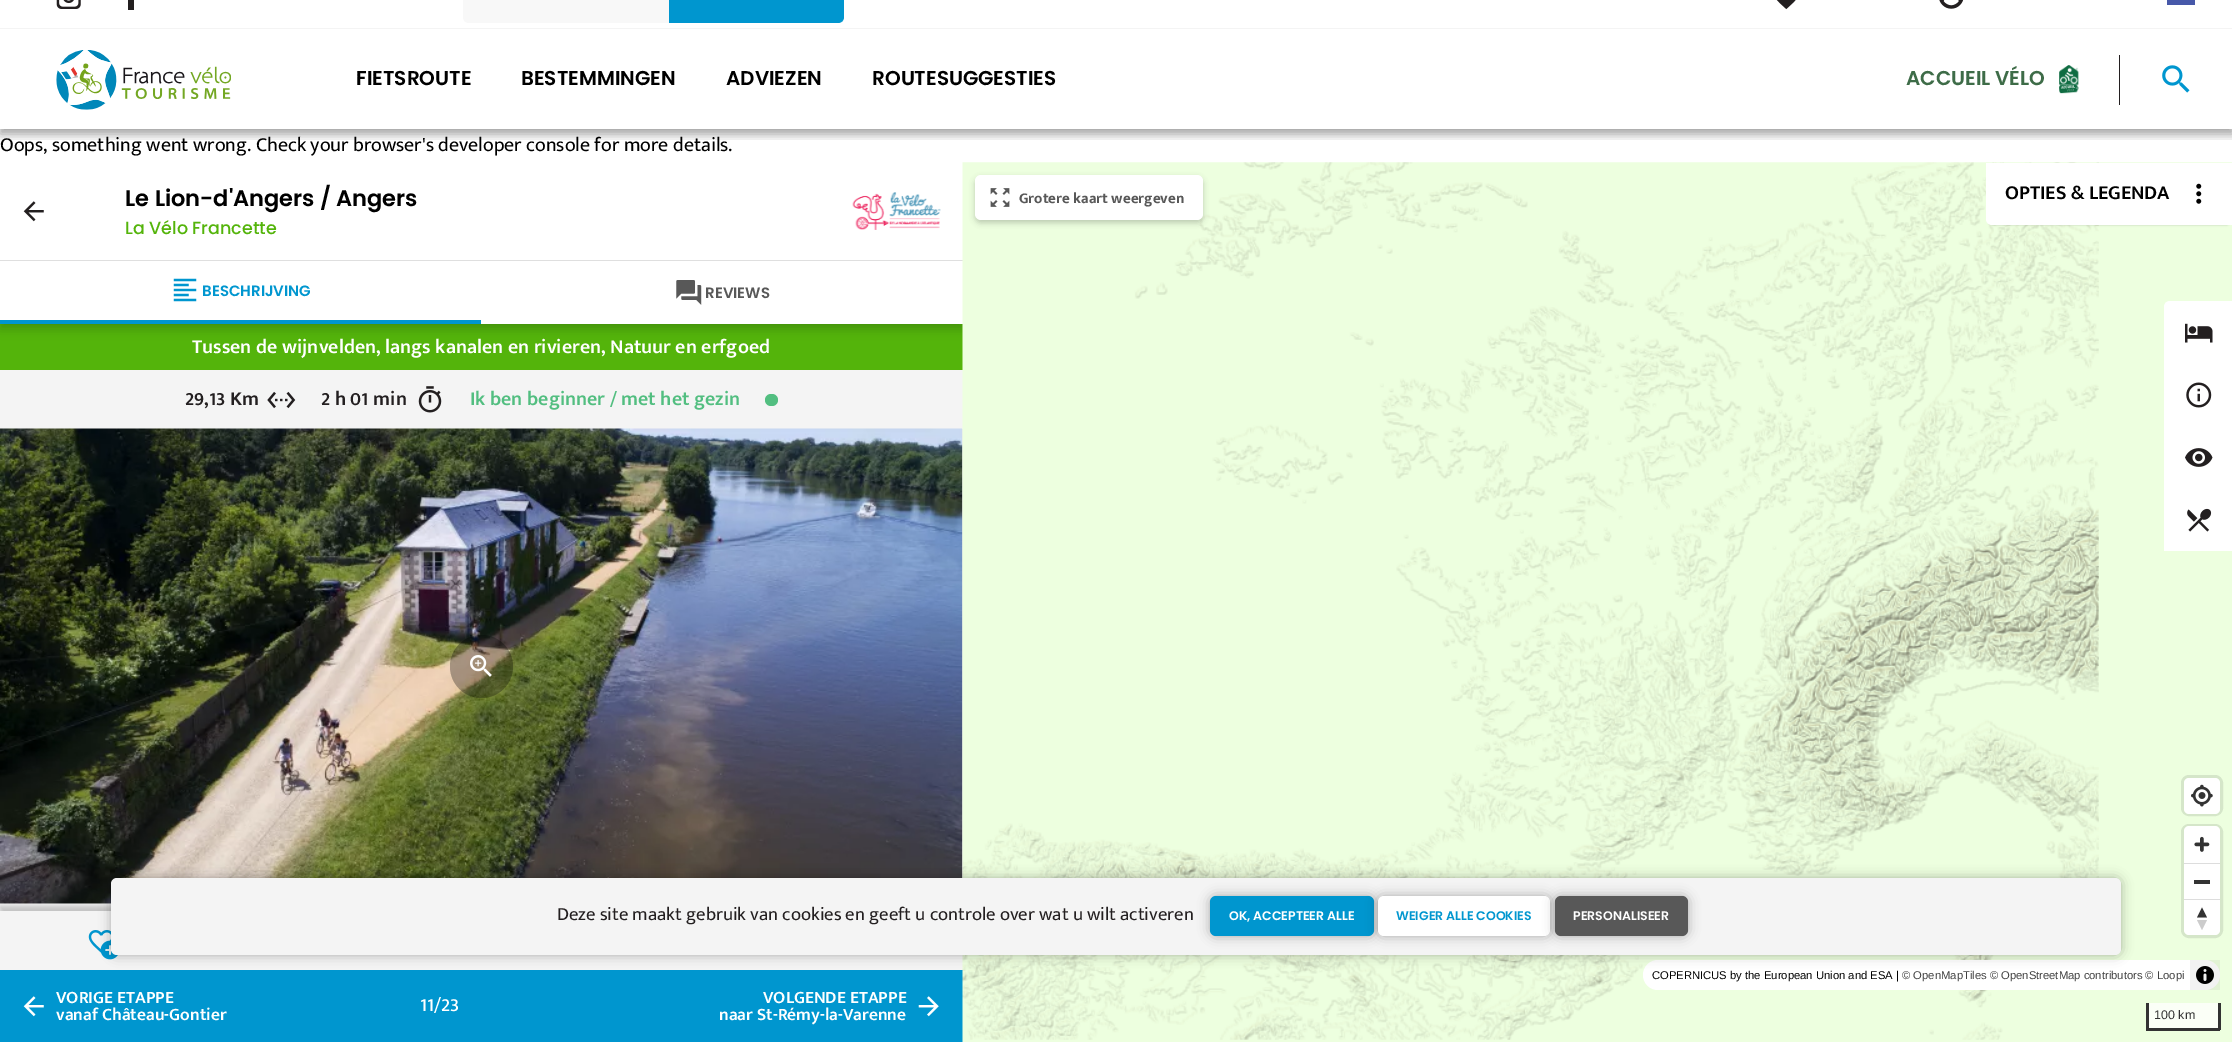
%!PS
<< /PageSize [2232 1042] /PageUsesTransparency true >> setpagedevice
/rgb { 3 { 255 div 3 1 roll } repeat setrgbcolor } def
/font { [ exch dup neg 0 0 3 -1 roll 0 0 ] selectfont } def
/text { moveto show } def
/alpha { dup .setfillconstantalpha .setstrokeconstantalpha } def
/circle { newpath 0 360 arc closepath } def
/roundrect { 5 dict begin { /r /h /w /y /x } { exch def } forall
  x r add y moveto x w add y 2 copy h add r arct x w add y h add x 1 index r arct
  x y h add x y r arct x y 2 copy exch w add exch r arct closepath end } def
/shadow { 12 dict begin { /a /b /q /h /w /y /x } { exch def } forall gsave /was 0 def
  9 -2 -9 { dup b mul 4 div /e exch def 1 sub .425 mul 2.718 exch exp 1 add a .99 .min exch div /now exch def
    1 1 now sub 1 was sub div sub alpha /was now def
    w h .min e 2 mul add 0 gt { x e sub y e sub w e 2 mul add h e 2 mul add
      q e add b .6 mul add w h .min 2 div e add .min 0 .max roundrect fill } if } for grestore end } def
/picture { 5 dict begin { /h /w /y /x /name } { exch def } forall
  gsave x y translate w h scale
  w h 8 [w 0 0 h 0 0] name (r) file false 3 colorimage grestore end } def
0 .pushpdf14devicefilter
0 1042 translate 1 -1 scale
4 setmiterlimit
255 255 255 rgb
0 0 2232 1042 rectfill
gsave
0 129 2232 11 rectclip
0 0 0 rgb
0 -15 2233 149 0 5 0.2 shadow
0 -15 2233 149 0 5 0.2 shadow
grestore
244 244 244 rgb
0 28 2232 1 rectfill
(img_01.rgb) 56 0 25 9 picture
35 31 32 rgb
128 0 6 10 rectfill
248 248 248 rgb
469 -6 moveto 200 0 rlineto 0 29 rlineto -200 0 rlineto -3.5 0 -6 -2.5 -6 -6 rcurveto 0 -17 rlineto 0 -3.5 2.5 -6 6 -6 rcurveto closepath fill
0 150 207 rgb
669 -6 moveto 169 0 rlineto 3.5 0 6 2.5 6 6 rcurveto 0 17 rlineto 0 3.5 -2.5 6 -6 6 rcurveto -169 0 rlineto closepath fill
(img_02.rgb) 1776 0 20 10 picture
(img_03.rgb) 1939 0 25 9 picture
71 88 169 rgb
2167 0 28 5 rectfill
255 255 255 rgb
0 128 2232 1 rectfill
(img_04.rgb) 56 50 175 60 picture
(img_05.rgb) 2059 65 20 29 picture
35 31 32 rgb
2119 55 1 50 rectfill
(img_06.rgb) 2162 65 28 28 picture
gsave
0 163 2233 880 rectclip
0 0 0 rgb
9 165 957 875 0 3 0.2 shadow
grestore
84 180 11 rgb
0 324 963 46 rectfill
0 0 0 rgb
0 266 963 63 0 5 0.2 shadow
255 255 255 rgb
0 163 963 97 rectfill
223 223 223 rgb
0 260 963 1 rectfill
(img_07.rgb) 23 201 21 21 picture
(img_08.rgb) 852 192 89 38 picture
255 255 255 rgb
0 261 963 63 rectfill
0 150 207 rgb
0 320 481 4 rectfill
(img_09.rgb) 173 278 24 24 picture
(img_10.rgb) 676 280 26 25 picture
244 244 244 rgb
0 370 963 59 rectfill
(img_11.rgb) 267 391 29 18 picture
(img_12.rgb) 418 386 24 27 picture
82 190 128 rgb
765 394 13 12 6 roundrect fill
(img_13.rgb) 0 428 963 476 picture
0.3 alpha
0 0 0 rgb
481.5 666.5 31.5 circle fill
1 alpha
(img_14.rgb) 470 655 22 22 picture
244 244 244 rgb
0 904 111 7 rectfill
0 0 0 rgb
0 906 963 59 0 2.5 0.2 shadow
244 244 244 rgb
0 911 963 59 rectfill
(img_15.rgb) 88 930 23 23 picture
(img_16.rgb) 100 940 18 20 picture
0 150 207 rgb
0 970 963 72 rectfill
(img_17.rgb) 23 996 21 21 picture
(img_18.rgb) 918 996 21 21 picture
(img_25.rgb) 962 162 1270 880 picture
0 0 0 rgb
975 178 228 45 6 3 0.2 shadow
255 255 255 rgb
975 175 228 45 6 roundrect fill
(img_19.rgb) 990 188 20 19 picture
0 0 0 rgb
1989 168 241 57 4 1 0.2 shadow
255 255 255 rgb
1986 163 moveto 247 0 rlineto 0 62 rlineto -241 0 rlineto -3.5 0 -6 -2.5 -6 -6 rcurveto closepath fill
(img_20.rgb) 2196 183 6 21 picture
2170 301 moveto 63 0 rlineto 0 63 rlineto -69 0 rlineto 0 -57 rlineto 0 -3.5 2.5 -6 6 -6 rcurveto closepath fill
(img_21.rgb) 2185 323 28 20 picture
2164 364 68 187 rectfill
(img_22.rgb) 2186 382 26 26 picture
(img_23.rgb) 2185 448 28 19 picture
(img_24.rgb) 2187 508 25 24 picture
213 230 201 rgb
3 setlinewidth
2182.5 776.5 39 38 6.5 roundrect stroke
255 255 255 rgb
2184 778 36 36 5 roundrect fill
(img_26.rgb) 2191 784 22 23 picture
213 230 201 rgb
2182.5 825.5 39 111 6.5 roundrect stroke
255 255 255 rgb
2184 826 36 109 5 roundrect fill
(img_27.rgb) 2194 836 16 16 picture
221 221 221 rgb
2184 863 36 1 rectfill
51 51 51 rgb
2194 880 16 4 rectfill
221 221 221 rgb
2184 899 36 1 rectfill
51 51 51 rgb
2197 917.5 moveto 5 -10 rlineto 5 10 rlineto closepath fill
204 204 204 rgb
2197 920 moveto 5 10 rlineto 5 -10 rlineto closepath fill
255 255 255 rgb
1643 960 577 30 15 roundrect fill
0.05 alpha
0 0 0 rgb
2190 960 30 30 rectfill
1 alpha
(img_28.rgb) 2196 966 18 18 picture
251 255 247 rgb
2149 1003 69 25 rectfill
51 51 51 rgb
2218 1003 3 27 rectfill
2146 1028 74 3 rectfill
2146 1003 3 27 rectfill
0 0 0 rgb
111 878 2010 77 6 6 0.3 shadow
244 244 244 rgb
111 878 2010 77 6 roundrect fill
0 0 0 rgb
1210 896 164 40 6 6 0.3 shadow
0 150 207 rgb
1210 896 164 40 6 roundrect fill
0 0 0 rgb
1378 896 172 40 6 6 0.3 shadow
255 255 255 rgb
1378 896 172 40 6 roundrect fill
0 0 0 rgb
1555 896 133 40 6 6 0.3 shadow
88 88 88 rgb
1555 896 133 40 6 roundrect fill
/Poppins-SemiBold 20 font
0 0 0 rgb
(FIETSROUTE) 356 85 text
(BESTEMMINGEN) 521 85 text
(ADVIEZEN) 726 85 text
(ROUTESUGGESTIES) 872 85 text
62 108 72 rgb
(ACCUEIL VÉLO) 1906 85 text
/MuktaMahee-Regular 20 font
0 0 0 rgb
(Oops, something went wrong. Check your browser's developer console for more details.) 0 151 text
/Poppins-SemiBold 22.5 font
(Le Lion-d'Angers / Angers) 125 206 text
/Poppins-Medium 17.5 font
84 180 11 rgb
(La Vélo Francette) 125 234 text
/Poppins-SemiBold 15 font
0 150 207 rgb
(BESCHRIJVING) 202 296 text
88 88 88 rgb
(REVIEWS) 705 298 text
/MuktaMahee-SemiBold 20 font
255 255 255 rgb
(Tussen de wijnvelden, langs kanalen en rivieren, Natuur en erfgoed) 192 353 text
35 31 32 rgb
(29,13 Km) 185 405 text
(2 h 01 min) 321 405 text
82 190 128 rgb
(Ik ben beginner / met het gezin) 470 405 text
/MuktaMahee-SemiBold 17.5 font
255 255 255 rgb
(VORIGE ETAPPE) 56 1003 text
(vanaf Château-Gontier) 56 1020 text
/MuktaMahee-Medium 20 font
(11/23) 420 1011 text
/MuktaMahee-SemiBold 17.5 font
(VOLGENDE ETAPPE) 763 1003 text
(naar St-Rémy-la-Varenne) 719 1020 text
/MuktaMahee-Bold 15 font
88 88 88 rgb
(Grotere kaart weergeven) 1019 203 text
/MuktaMahee-SemiBold 20 font
0 0 0 rgb
(OPTIES & LEGENDA) 2005 199 text
/LiberationSans-Regular 11.25 font
(COPERNICUS by the European Union and ESA |) 1652 979 text
64 64 64 rgb
(© OpenMapTiles © OpenStreetMap contributors © Loopi) 1902 979 text
/LiberationSans-Regular 12.5 font
51 51 51 rgb
(100 km) 2154 1019 text
/MuktaMahee-Regular 18.75 font
35 31 32 rgb
(Deze site maakt gebruik van cookies en geeft u controle over wat u wilt activeren) 557 920 text
/Poppins-SemiBold 12.5 font
255 255 255 rgb
(OK, ACCEPTEER ALLE) 1229 920 text
0 150 207 rgb
(WEIGER ALLE COOKIES) 1396 920 text
255 255 255 rgb
(PERSONALISEER) 1573 920 text
.poppdf14devicefilter showpage
